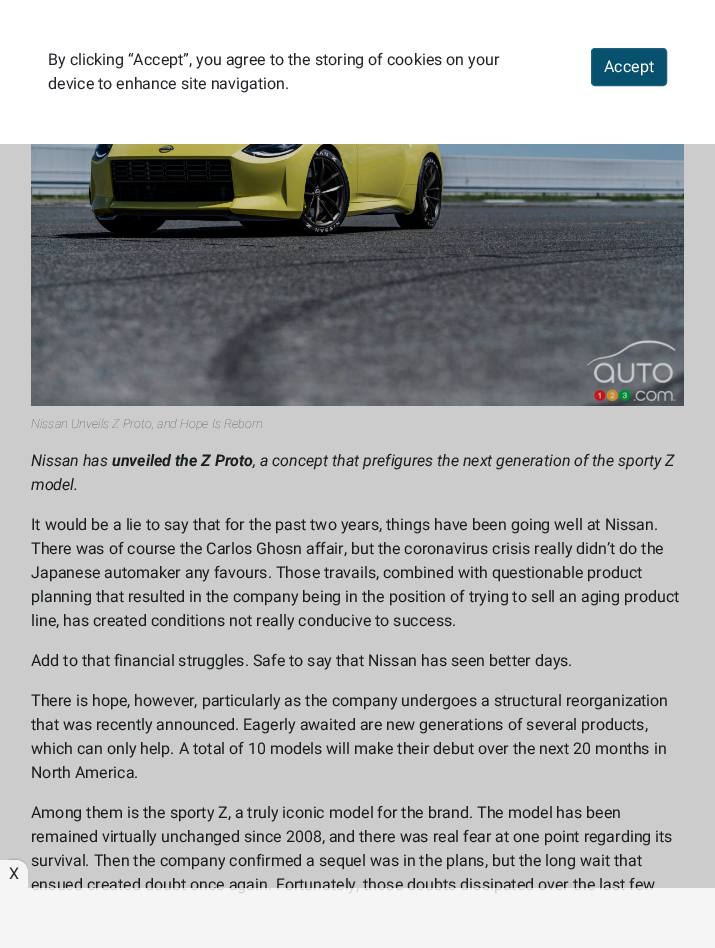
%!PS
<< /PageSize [715 948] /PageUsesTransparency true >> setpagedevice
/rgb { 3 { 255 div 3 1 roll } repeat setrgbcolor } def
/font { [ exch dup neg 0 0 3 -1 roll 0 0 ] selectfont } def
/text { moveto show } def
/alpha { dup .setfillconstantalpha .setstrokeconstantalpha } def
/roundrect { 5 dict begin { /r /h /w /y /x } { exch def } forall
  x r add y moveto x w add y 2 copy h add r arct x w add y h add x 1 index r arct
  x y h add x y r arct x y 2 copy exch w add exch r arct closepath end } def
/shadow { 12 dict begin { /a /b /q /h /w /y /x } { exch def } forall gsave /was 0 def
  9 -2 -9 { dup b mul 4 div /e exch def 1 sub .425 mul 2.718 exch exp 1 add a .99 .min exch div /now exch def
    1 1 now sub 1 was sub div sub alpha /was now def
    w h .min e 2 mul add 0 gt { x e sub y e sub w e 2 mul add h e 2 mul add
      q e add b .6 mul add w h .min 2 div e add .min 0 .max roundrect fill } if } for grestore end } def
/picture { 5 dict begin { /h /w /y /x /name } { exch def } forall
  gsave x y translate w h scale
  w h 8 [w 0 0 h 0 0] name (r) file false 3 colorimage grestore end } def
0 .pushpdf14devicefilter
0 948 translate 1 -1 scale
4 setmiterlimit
204 204 204 rgb
0 0 715 948 rectfill
255 255 255 rgb
0 0 715 144 rectfill
7 80 110 rgb
591.5 48.5 75 37 3.5 roundrect gsave fill grestore
31 97 124 rgb
stroke
(img_01.rgb) 31 144 653 262 picture
/Roboto-Regular 16 font
33 37 41 rgb
(By clicking “Accept”, you agree to the storing of cookies on your) 48 65 text
(device to enhance site navigation.) 48 89 text
255 255 255 rgb
(Accept) 604 72 text
/Roboto-ThinItalic 12.75 font
86 94 100 rgb
(Nissan Unveils Z Proto, and Hope Is Reborn) 31 428 text
/Roboto-Italic 16 font
26 30 33 rgb
(Nissan has) 31 466 text
/Roboto-BoldItalic 16 font
(unveiled the Z Proto) 112 466 text
/Roboto-Italic 16 font
(, a concept that prefigures the next generation of the sporty Z) 253 466 text
(model.) 31 490 text
/Roboto-Regular 16 font
(It would be a lie to say that for the past two years, things have been going well at Nissan.) 31 530 text
(There was of course the Carlos Ghosn affair, but the coronavirus crisis really didn’t do the) 31 554 text
(Japanese automaker any favours. Those travails, combined with questionable product) 31 578 text
(planning that resulted in the company being in the position of trying to sell an aging product) 31 602 text
(line, has created conditions not really conducive to success.) 31 626 text
(Add to that financial struggles. Safe to say that Nissan has seen better days.) 31 666 text
(There is hope, however, particularly as the company undergoes a structural reorganization) 31 706 text
(that was recently announced. Eagerly awaited are new generations of several products,) 31 730 text
(which can only help. A total of 10 models will make their debut over the next 20 months in) 31 754 text
(North America.) 31 778 text
(Among them is the sporty Z, a truly iconic model for the brand. The model has been) 31 818 text
(remained virtually unchanged since 2008, and there was real fear at one point regarding its) 31 842 text
(survival. Then the company confirmed a sequel was in the plans, but the long wait that) 31 866 text
(ensued created doubt once again. Fortunately, those doubts dissipated over the last few) 31 890 text
0.8 alpha
255 255 255 rgb
0 888 715 60 rectfill
1 alpha
41 41 41 rgb
0 859 28 28 12 0.5 0.2 shadow
245 245 245 rgb
0 860 moveto 16 0 rlineto 6.5 0 12 5.5 12 12 rcurveto 0 16 rlineto -28 0 rlineto closepath fill
41 41 41 rgb
(X) 9 879 text
.poppdf14devicefilter showpage
